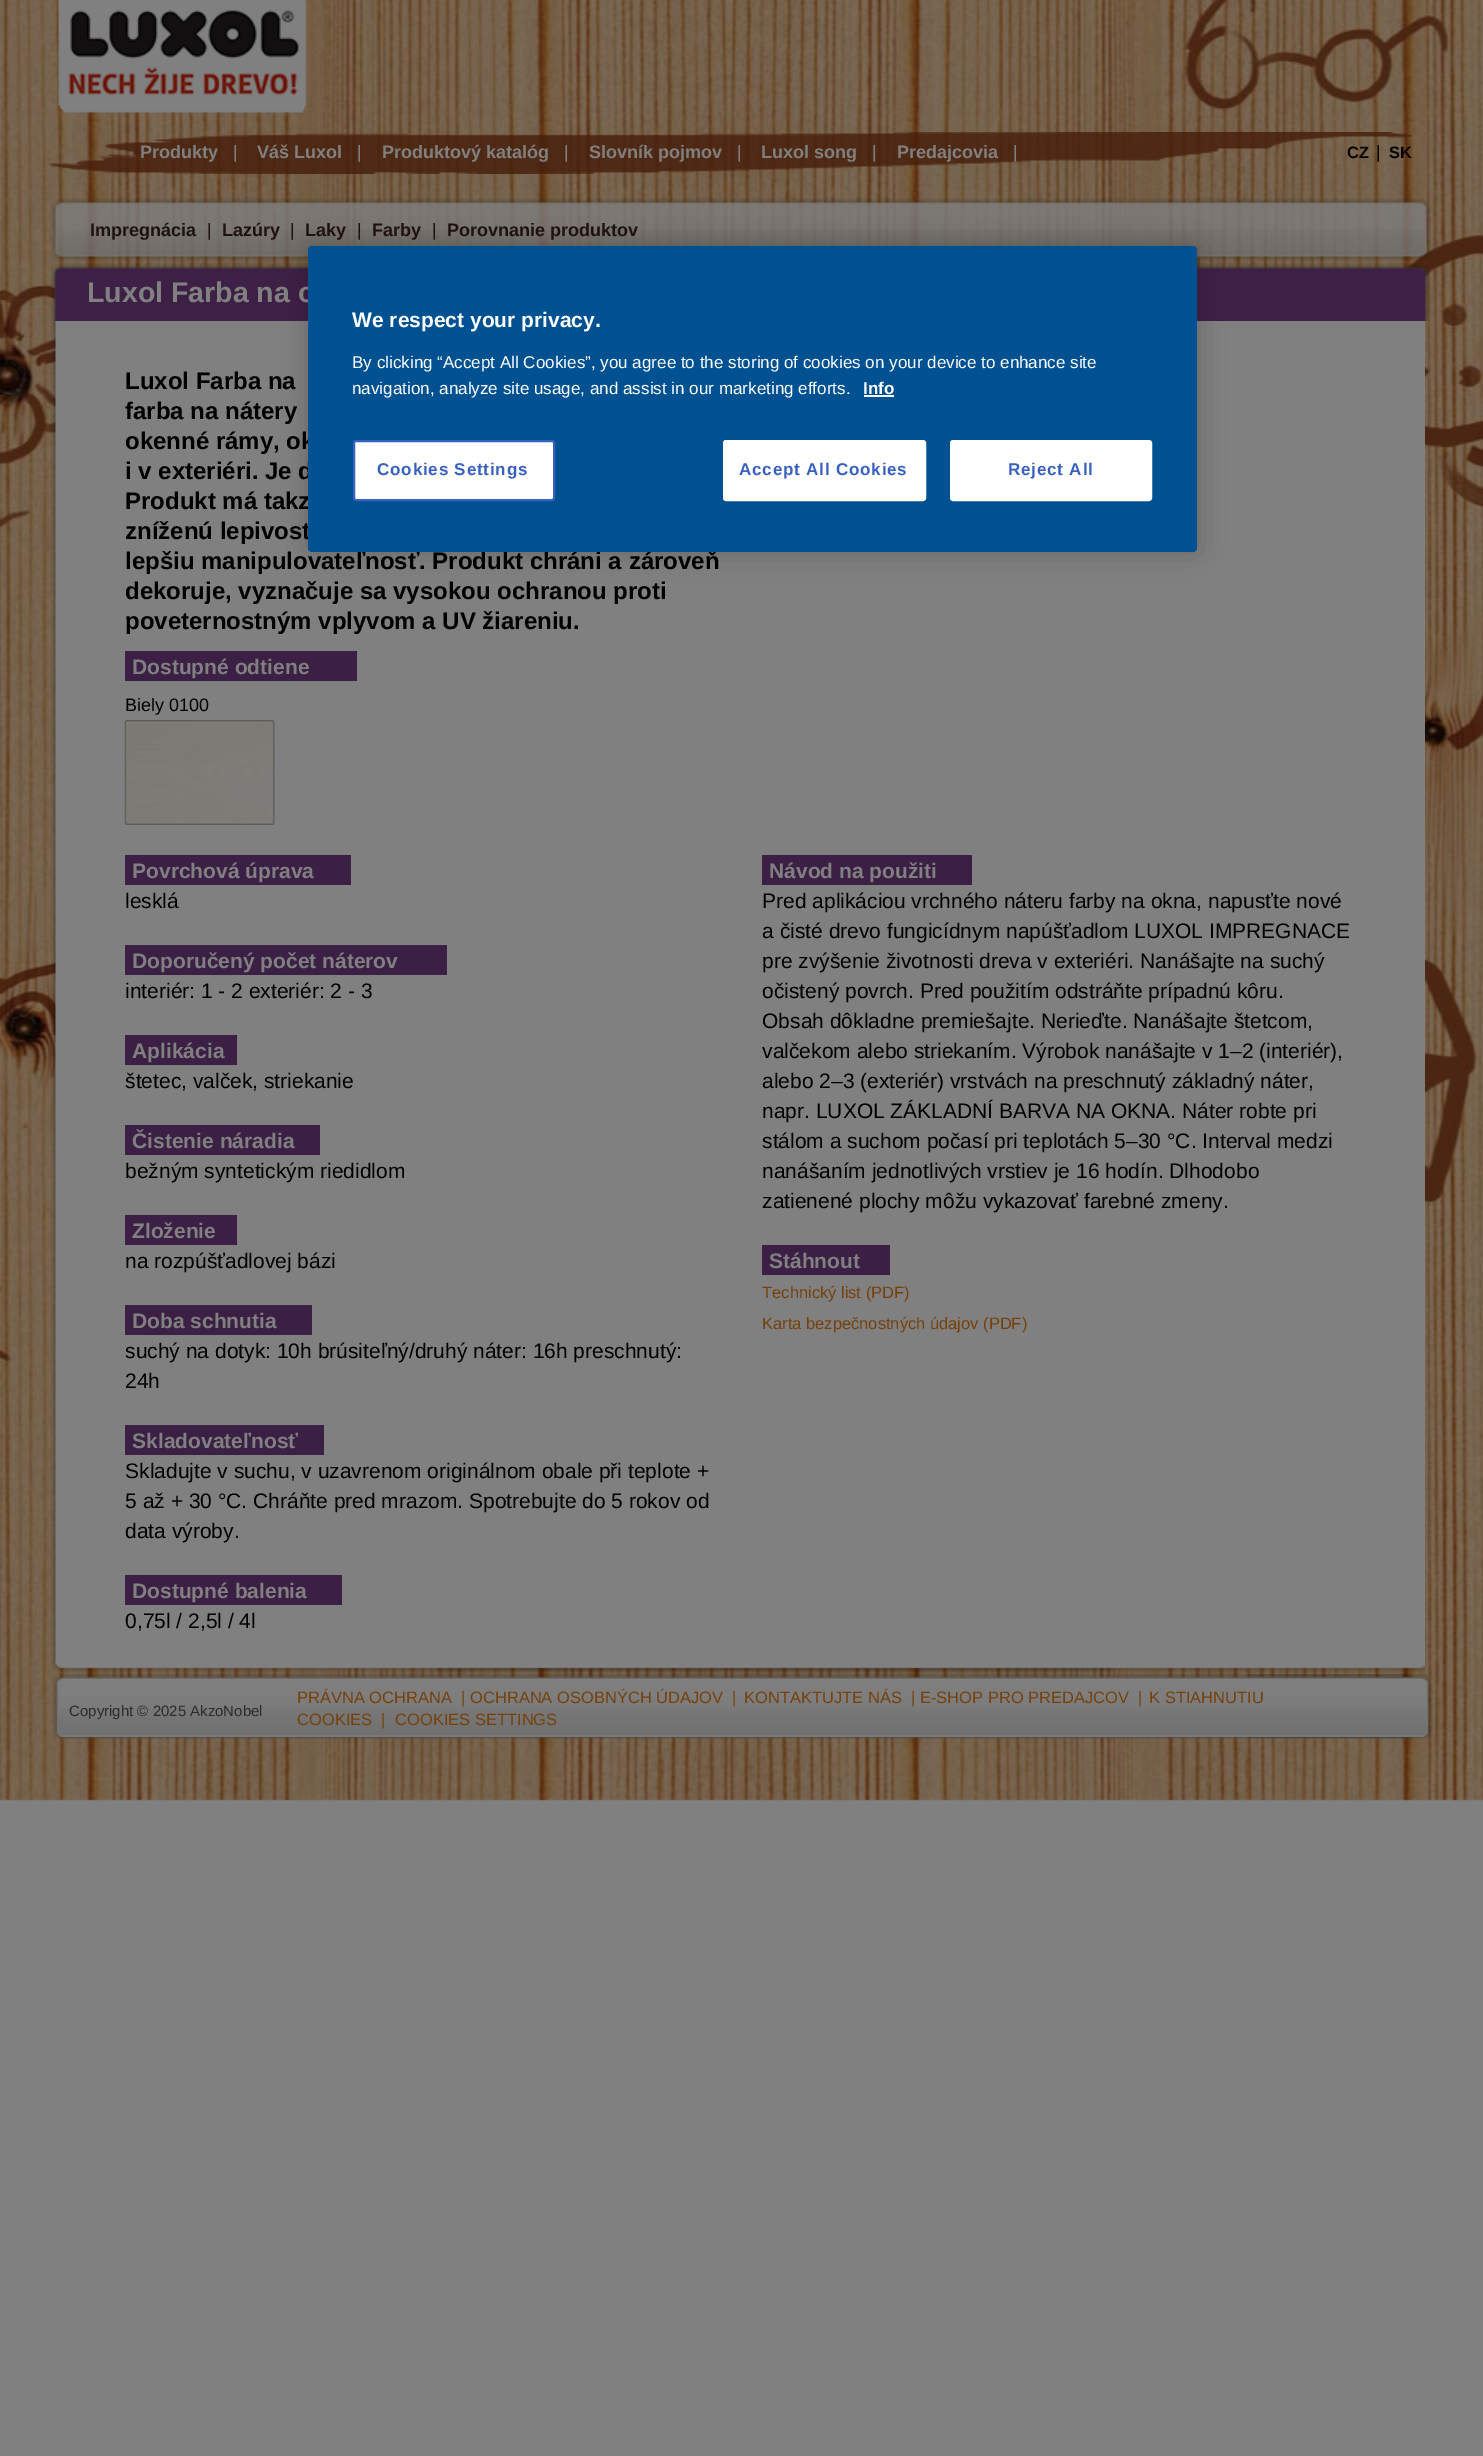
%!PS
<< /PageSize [1483 2456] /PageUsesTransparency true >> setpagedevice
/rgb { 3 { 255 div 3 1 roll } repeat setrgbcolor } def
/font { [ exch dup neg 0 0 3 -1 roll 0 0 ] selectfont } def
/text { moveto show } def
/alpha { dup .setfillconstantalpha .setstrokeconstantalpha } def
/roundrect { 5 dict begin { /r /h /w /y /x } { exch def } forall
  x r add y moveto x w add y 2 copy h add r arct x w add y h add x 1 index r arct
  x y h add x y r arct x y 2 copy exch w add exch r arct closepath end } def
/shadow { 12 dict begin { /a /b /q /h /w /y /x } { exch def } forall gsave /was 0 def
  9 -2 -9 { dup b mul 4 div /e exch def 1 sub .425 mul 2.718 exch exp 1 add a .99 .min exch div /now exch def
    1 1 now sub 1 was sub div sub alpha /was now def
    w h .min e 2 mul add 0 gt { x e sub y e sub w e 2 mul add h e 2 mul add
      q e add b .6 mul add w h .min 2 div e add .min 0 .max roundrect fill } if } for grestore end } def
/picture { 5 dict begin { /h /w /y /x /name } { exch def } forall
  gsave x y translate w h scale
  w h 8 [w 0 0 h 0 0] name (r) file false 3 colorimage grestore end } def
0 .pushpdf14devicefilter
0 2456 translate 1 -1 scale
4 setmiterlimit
128 128 128 rgb
0 0 1483 2456 rectfill
(img_01.rgb) 0 0 1483 1801 picture
(img_02.rgb) 58 0 249 113 picture
(img_03.rgb) 49 132 1363 42 picture
(img_04.rgb) 50 198 1381 63 picture
(img_05.rgb) 50 263 1380 58 picture
(img_06.rgb) 50 321 1375 1341 picture
60 31 68 rgb
125 651 232 30 rectfill
(img_07.rgb) 124 720 151 105 picture
125 855 226 30 rectfill
125 945 322 30 rectfill
125 1035 112 30 rectfill
125 1125 195 30 rectfill
125 1215 112 30 rectfill
125 1305 187 30 rectfill
125 1425 199 30 rectfill
125 1575 217 30 rectfill
762 855 210 30 rectfill
762 1245 128 30 rectfill
(img_08.rgb) 51 1662 1374 12 picture
(img_09.rgb) 52 1674 1381 65 picture
0 0 0 rgb
308 246 889 306 4 13.5 0.2 shadow
/LiberationSans-Bold 18 font
128 128 128 rgb
(Produkty) 140 158 text
/LiberationSans-Regular 18 font
(|) 233 158 text
/LiberationSans-Bold 18 font
(Váš Luxol) 257 158 text
/LiberationSans-Regular 18 font
(|) 357 158 text
/LiberationSans-Bold 18 font
(Produktový katalóg) 382 158 text
/LiberationSans-Regular 18 font
(|) 564 158 text
/LiberationSans-Bold 18 font
(Slovník pojmov) 589 158 text
/LiberationSans-Regular 18 font
(|) 737 158 text
/LiberationSans-Bold 18 font
(Luxol song) 761 158 text
/LiberationSans-Regular 18 font
(|) 872 158 text
/LiberationSans-Bold 18 font
(Predajcovia) 897 158 text
/LiberationSans-Regular 18 font
(|) 1013 158 text
/LiberationSans-Bold 16.5 font
0 0 0 rgb
(CZ) 1347 158 text
/LiberationSans-Regular 18 font
(|) 1376 158 text
/LiberationSans-Bold 16.5 font
(SK) 1389 158 text
/LiberationSans-Bold 18 font
29 18 17 rgb
(Impregnácia) 90 236 text
/LiberationSans-Regular 18 font
(|) 207 236 text
/LiberationSans-Bold 18 font
(Lazúry) 222 236 text
/LiberationSans-Regular 18 font
(|) 290 236 text
/LiberationSans-Bold 18 font
(Laky) 305 236 text
/LiberationSans-Regular 18 font
(|) 357 236 text
/LiberationSans-Bold 18 font
(Farby) 372 236 text
/LiberationSans-Regular 18 font
(|) 432 236 text
/LiberationSans-Bold 18 font
(Porovnanie produktov) 447 236 text
/LiberationSans-Bold 28.5 font
128 128 128 rgb
(Luxol Farba na o) 87 302 text
/LiberationSans-Bold 24 font
0 0 0 rgb
(Luxol Farba na) 125 389 text
(farba na nátery) 125 419 text
(okenné rámy, ok) 125 449 text
(i v exteriéri. Je d) 125 479 text
(Produkt má takz) 125 509 text
(zníženú lepivosť) 125 539 text
(lepšiu manipulovateľnosť. Produkt chráni a zároveň) 125 569 text
(dekoruje, vyznačuje sa vysokou ochranou proti) 125 599 text
(poveternostným vplyvom a UV žiareniu.) 125 629 text
/LiberationSans-Bold 21 font
128 128 128 rgb
(Dostupné odtiene) 132 674 text
/LiberationSans-Regular 18 font
0 0 0 rgb
(Biely 0100) 125 711 text
/LiberationSans-Bold 21 font
128 128 128 rgb
(Povrchová úprava) 132 878 text
/LiberationSans-Regular 21 font
0 0 0 rgb
(lesklá) 125 908 text
/LiberationSans-Bold 21 font
128 128 128 rgb
(Doporučený počet náterov) 132 968 text
/LiberationSans-Regular 21 font
0 0 0 rgb
(interiér: 1 - 2 exteriér: 2 - 3) 125 998 text
/LiberationSans-Bold 21 font
128 128 128 rgb
(Aplikácia) 132 1058 text
/LiberationSans-Regular 21 font
0 0 0 rgb
(štetec, valček, striekanie) 125 1088 text
/LiberationSans-Bold 21 font
128 128 128 rgb
(Čistenie náradia) 132 1148 text
/LiberationSans-Regular 21 font
0 0 0 rgb
(bežným syntetickým riedidlom) 125 1178 text
/LiberationSans-Bold 21 font
128 128 128 rgb
(Zloženie) 132 1238 text
/LiberationSans-Regular 21 font
0 0 0 rgb
(na rozpúšťadlovej bázi) 125 1268 text
/LiberationSans-Bold 21 font
128 128 128 rgb
(Doba schnutia) 132 1328 text
/LiberationSans-Regular 21 font
0 0 0 rgb
(suchý na dotyk: 10h brúsiteľný/druhý náter: 16h preschnutý:) 125 1358 text
(24h) 125 1388 text
/LiberationSans-Bold 21 font
128 128 128 rgb
(Skladovateľnosť) 132 1448 text
/LiberationSans-Regular 21 font
0 0 0 rgb
(Skladujte v suchu, v uzavrenom originálnom obale při teplote +) 125 1478 text
(5 až + 30 °C. Chráňte pred mrazom. Spotrebujte do 5 rokov od) 125 1508 text
(data výroby.) 125 1538 text
/LiberationSans-Bold 21 font
128 128 128 rgb
(Dostupné balenia) 132 1598 text
/LiberationSans-Regular 21 font
0 0 0 rgb
(0,75l / 2,5l / 4l) 125 1628 text
/LiberationSans-Bold 21 font
128 128 128 rgb
(Návod na použiti) 769 878 text
/LiberationSans-Regular 21 font
0 0 0 rgb
(Pred aplikáciou vrchného náteru farby na okna, napusťte nové) 762 908 text
(a čisté drevo fungicídnym napúšťadlom LUXOL IMPREGNACE) 762 938 text
(pre zvýšenie životnosti dreva v exteriéri. Nanášajte na suchý) 762 968 text
(očistený povrch. Pred použitím odstráňte prípadnú kôru.) 762 998 text
(Obsah dôkladne premiešajte. Nerieďte. Nanášajte štetcom,) 762 1028 text
(valčekom alebo striekaním. Výrobok nanášajte v 1–2 \(interiér\),) 762 1058 text
(alebo 2–3 \(exteriér\) vrstvách na preschnutý základný náter,) 762 1088 text
(napr. LUXOL ZÁKLADNÍ BARVA NA OKNA. Náter robte pri) 762 1118 text
(stálom a suchom počasí pri teplotách 5–30 °C. Interval medzi) 762 1148 text
(nanášaním jednotlivých vrstiev je 16 hodín. Dlhodobo) 762 1178 text
(zatienené plochy môžu vykazovať farebné zmeny.) 762 1208 text
/LiberationSans-Bold 21 font
128 128 128 rgb
(Stáhnout) 769 1268 text
/LiberationSans-Regular 16.5 font
118 64 11 rgb
(Technický list \(PDF\)) 762 1298 text
(Karta bezpečnostných údajov \(PDF\)) 762 1329 text
/LiberationSans-Regular 15 font
43 43 43 rgb
(Copyright © 2025 AkzoNobel) 69 1716 text
/LiberationSans-Regular 16.5 font
118 64 11 rgb
(PRÁVNA OCHRANA) 297 1703 text
(|) 461 1703 text
(OCHRANA OSOBNÝCH ÚDAJOV) 470 1703 text
(|) 732 1703 text
(KONTAKTUJTE NÁS) 744 1703 text
(| E-SHOP PRO PREDAJCOV) 911 1703 text
(|) 1138 1703 text
(K STIAHNUTIU) 1149 1703 text
(COOKIES) 297 1725 text
(|) 381 1725 text
(COOKIES SETTINGS) 395 1725 text
0 81 146 rgb
308 246 889 306 4 roundrect fill
/LiberationSans-Bold 21 font
255 255 255 rgb
(We respect your privacy.) 352 327 text
/LiberationSans-Regular 17.05 font
(By clicking “Accept All Cookies”, you agree to the storing of cookies on your device to enhance site) 352 368 text
(navigation, analyze site usage, and assist in our marketing efforts.) 352 394 text
/LiberationSans-Bold 17.05 font
(Info) 863 394 text
250 251 255 rgb
864 395 30 2 rectfill
255 255 255 rgb
354 441 200 59 2 roundrect gsave fill grestore
56 96 190 rgb
2 setlinewidth
stroke
377 475 moveto 0.8 0 (Cookies Settings) ashow
255 255 255 rgb
724 441 201 59 2 roundrect gsave fill grestore
stroke
56 96 190 rgb
739 475 moveto 0.8 0 (Accept All Cookies) ashow
255 255 255 rgb
951 441 200 59 2 roundrect gsave fill grestore
stroke
56 96 190 rgb
1008 475 moveto 0.8 0 (Reject All) ashow
.poppdf14devicefilter showpage
